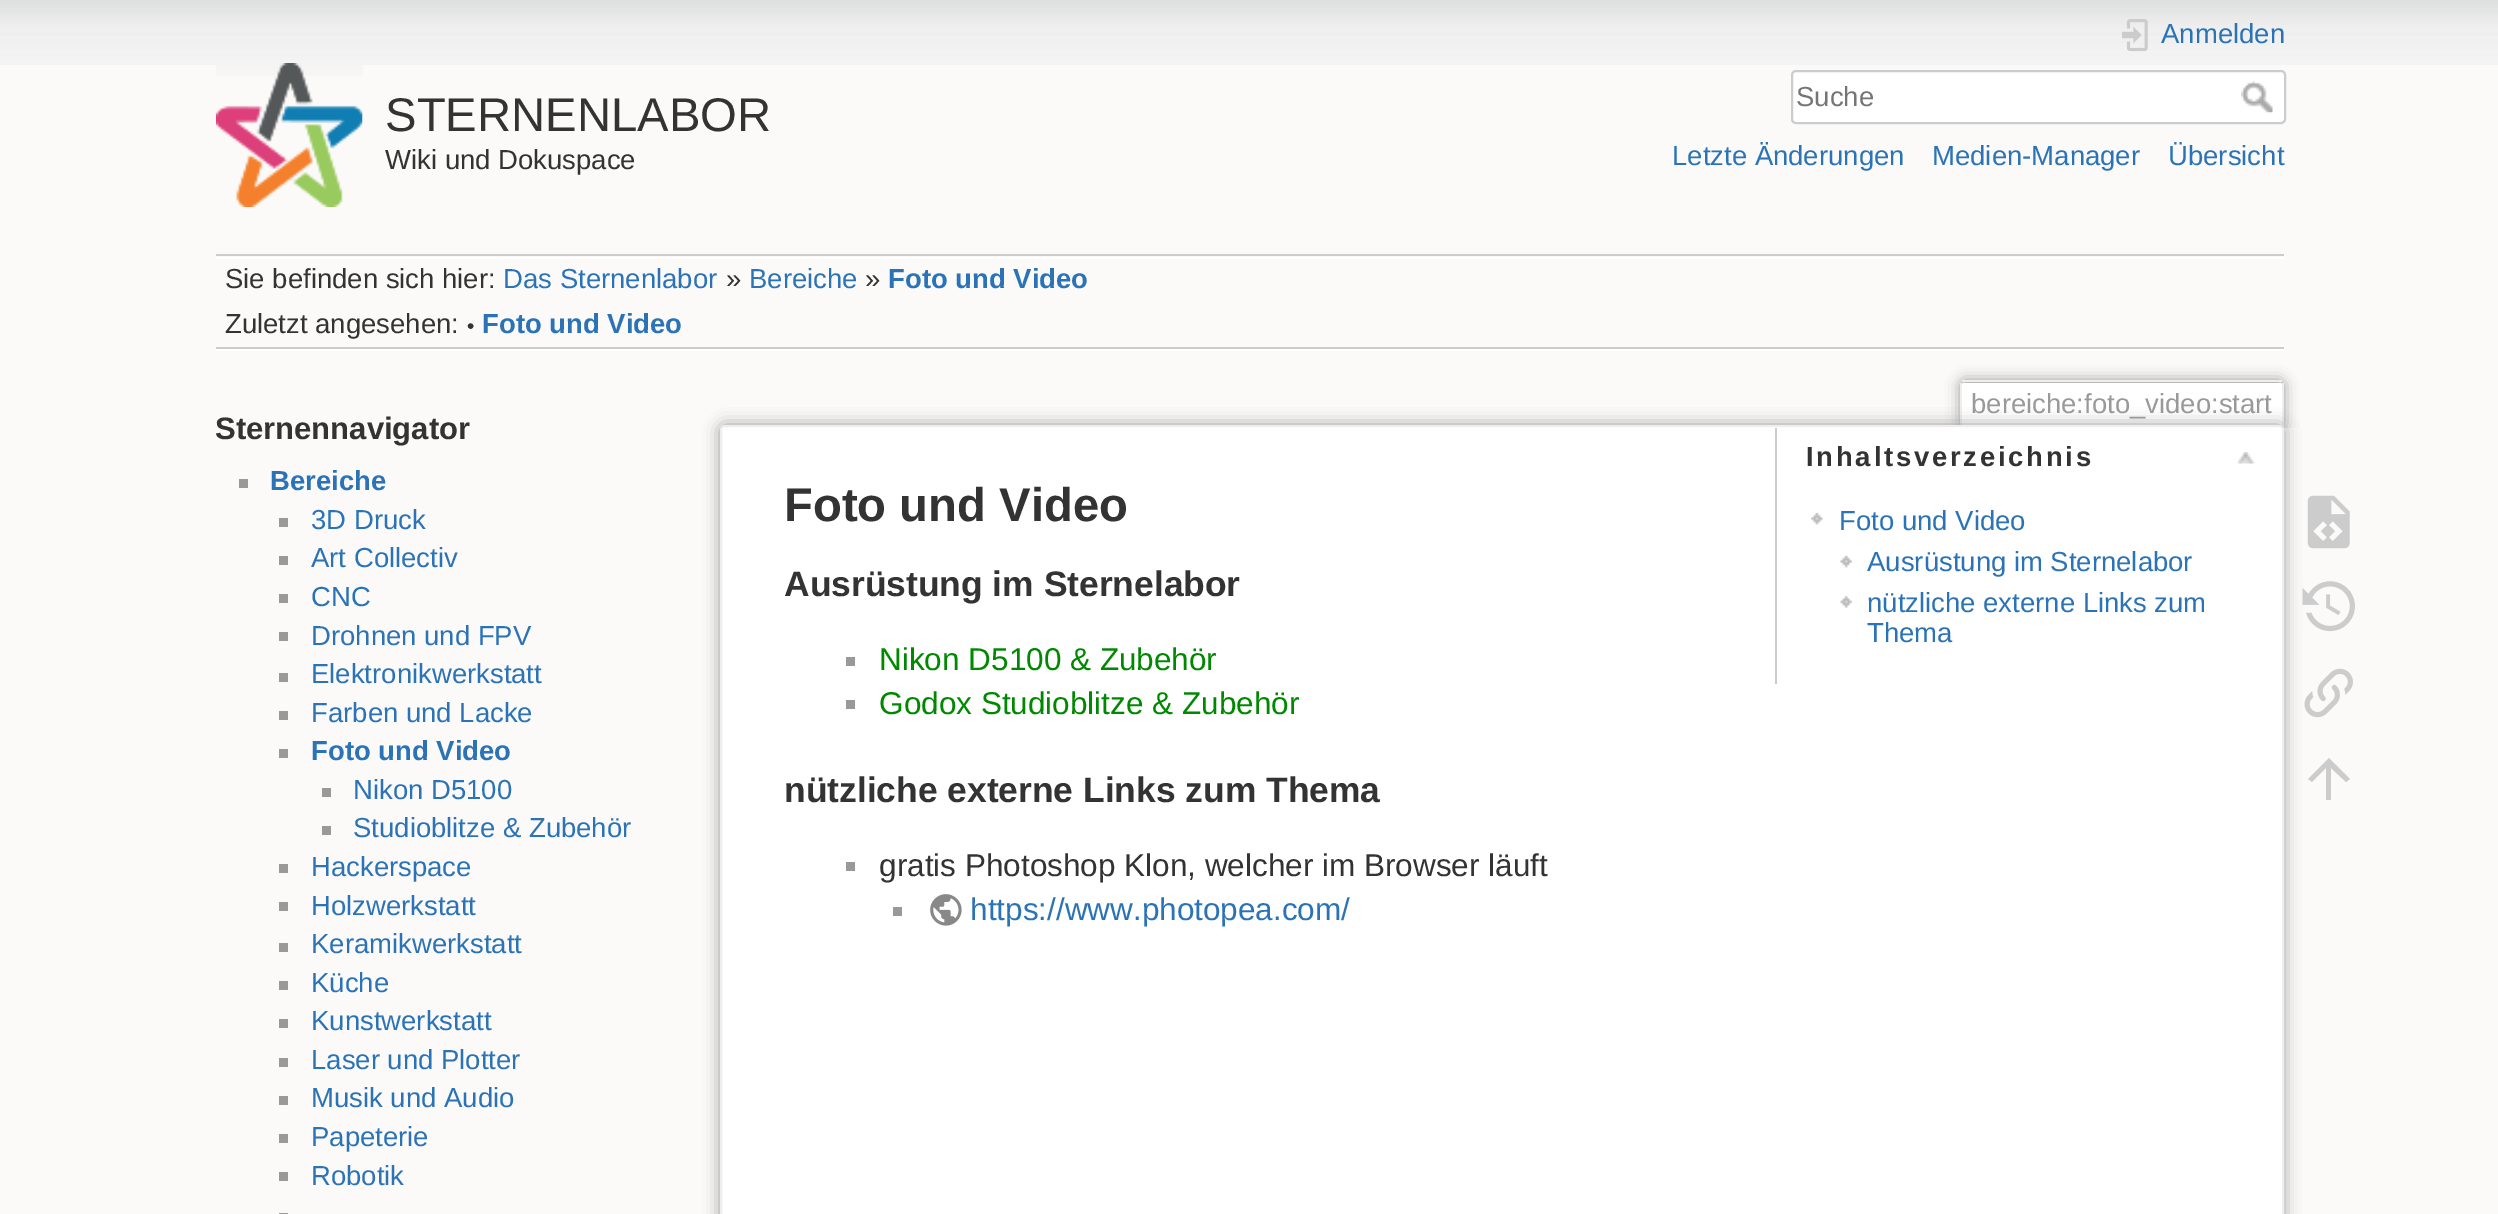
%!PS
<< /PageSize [2498 1214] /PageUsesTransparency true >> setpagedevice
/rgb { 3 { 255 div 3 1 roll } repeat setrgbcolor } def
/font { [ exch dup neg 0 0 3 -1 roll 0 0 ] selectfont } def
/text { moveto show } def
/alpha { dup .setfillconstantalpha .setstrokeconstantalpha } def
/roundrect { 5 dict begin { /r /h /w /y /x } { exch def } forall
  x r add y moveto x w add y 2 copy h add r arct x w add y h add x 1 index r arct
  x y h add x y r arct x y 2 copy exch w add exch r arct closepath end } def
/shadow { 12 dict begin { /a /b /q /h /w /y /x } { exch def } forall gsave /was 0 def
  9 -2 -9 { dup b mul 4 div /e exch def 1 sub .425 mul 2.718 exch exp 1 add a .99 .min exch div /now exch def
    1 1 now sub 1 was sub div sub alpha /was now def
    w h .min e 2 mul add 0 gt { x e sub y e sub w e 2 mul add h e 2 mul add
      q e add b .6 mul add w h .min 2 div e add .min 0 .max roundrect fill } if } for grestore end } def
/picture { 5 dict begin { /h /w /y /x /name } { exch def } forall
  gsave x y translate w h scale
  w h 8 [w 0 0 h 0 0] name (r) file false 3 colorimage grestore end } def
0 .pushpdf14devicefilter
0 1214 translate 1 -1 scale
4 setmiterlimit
251 250 249 rgb
0 0 2498 1214 rectfill
(img_01.rgb) 0 0 2498 65 picture
(img_02.rgb) 216 63 147 144 picture
(img_03.rgb) 2122 19 26 33 picture
255 255 255 rgb
1792 71 493 52 4 roundrect gsave fill grestore
204 204 204 rgb
2 setlinewidth
stroke
(img_04.rgb) 2241 81 32 32 picture
216 254 2068 2 rectfill
255 255 255 rgb
216 349 2068 2 rectfill
216 257 2068 2 rectfill
204 204 204 rgb
216 347 2068 2 rectfill
153 153 153 rgb
239 479 9 9 rectfill
279 518 9 9 rectfill
279 556 9 9 rectfill
279 594 9 9 rectfill
279 632 9 9 rectfill
279 673 9 9 rectfill
279 711 9 9 rectfill
279 749 9 9 rectfill
322 788 9 9 rectfill
322 826 9 9 rectfill
279 864 9 9 rectfill
279 902 9 9 rectfill
279 943 9 9 rectfill
279 981 9 9 rectfill
279 1019 9 9 rectfill
279 1058 9 9 rectfill
279 1096 9 9 rectfill
279 1134 9 9 rectfill
279 1172 9 9 rectfill
279 1213 9 1 rectfill
gsave
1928 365 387 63 rectclip
1960 380 324 48 5 7 1 shadow
grestore
255 255 255 rgb
1964 383 moveto 316 0 rlineto 1 0 2 1 2 2 rcurveto 0 43 rlineto -320 0 rlineto 0 -43 rlineto 0 -1 1 -2 2 -2 rcurveto closepath fill
238 238 238 rgb
1962 380 320 2 rectfill
2282 383 2 45 rectfill
1960 383 2 45 rectfill
153 153 153 rgb
720 425 1564 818 5 8 1 shadow
255 255 255 rgb
721 426 1562 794 4 roundrect gsave fill grestore
238 238 238 rgb
stroke
255 255 255 rgb
2281 428 1 1 rectfill
204 204 204 rgb
1775 428 2 256 rectfill
(img_05.rgb) 2237 452 18 12 picture
(img_06.rgb) 1811 513 12 12 picture
(img_07.rgb) 1840 555 12 13 picture
(img_08.rgb) 1840 596 12 12 picture
153 153 153 rgb
846 657 9 9 rectfill
846 700 9 9 rectfill
846 862 9 9 rectfill
893 907 9 9 rectfill
(img_09.rgb) 930 894 32 32 picture
(img_10.rgb) 2307 495 43 54 picture
(img_11.rgb) 2302 581 53 51 picture
(img_12.rgb) 2304 668 49 50 picture
204 204 204 rgb
2331 800 moveto -5 0 rlineto 0 -32 rlineto -14 14 rlineto -4 -3 rlineto 21 -21 rlineto 21 21 rlineto -4 3 rlineto -15 -14 rlineto closepath fill
/LiberationSans-Regular 47.25 font
51 51 51 rgb
(STERNENLABOR) 385 131 text
/LiberationSans-Regular 27.5 font
(Wiki und Dokuspace) 385 169 text
43 115 183 rgb
(Anmelden) 2161 43 text
117 117 117 rgb
(Suche) 1796 106 text
43 115 183 rgb
(Letzte Änderungen) 1672 165 text
(Medien-Manager) 1932 165 text
(Übersicht) 2168 165 text
51 51 51 rgb
(Sie befinden sich hier:) 225 288 text
43 115 183 rgb
(Das Sternenlabor) 503 288 text
51 51 51 rgb
(») 726 288 text
43 115 183 rgb
(Bereiche) 749 288 text
51 51 51 rgb
(») 865 288 text
/LiberationSans-Bold 27.5 font
43 115 183 rgb
(Foto und Video) 888 288 text
/LiberationSans-Regular 27.5 font
51 51 51 rgb
(Zuletzt angesehen:) 225 333 text
/LiberationSans-Regular 21 font
(•) 467 333 text
/LiberationSans-Bold 27.5 font
43 115 183 rgb
(Foto und Video) 482 333 text
/LiberationSans-Bold 31 font
51 51 51 rgb
(Sternennavigator) 215 439 text
/LiberationSans-Bold 27.5 font
43 115 183 rgb
(Bereiche) 270 490 text
/LiberationSans-Regular 27.5 font
(3D Druck) 311 529 text
(Art Collectiv) 311 567 text
(CNC) 311 606 text
(Drohnen und FPV) 311 645 text
(Elektronikwerkstatt) 311 683 text
(Farben und Lacke) 311 722 text
/LiberationSans-Bold 27.5 font
(Foto und Video) 311 760 text
/LiberationSans-Regular 27.5 font
(Nikon D5100) 353 799 text
(Studioblitze & Zubehör) 353 837 text
(Hackerspace) 311 876 text
(Holzwerkstatt) 311 915 text
(Keramikwerkstatt) 311 953 text
(Küche) 311 992 text
(Kunstwerkstatt) 311 1030 text
(Laser und Plotter) 311 1069 text
(Musik und Audio) 311 1107 text
(Papeterie) 311 1146 text
(Robotik) 311 1185 text
153 153 153 rgb
(bereiche:foto_video:start) 1971 413 text
/LiberationSans-Bold 47.25 font
51 51 51 rgb
(Foto und Video) 784 521 text
/LiberationSans-Bold 27.5 font
1806 466 moveto 2.75 0 (Inhaltsverzeichnis) ashow
/LiberationSans-Regular 27.5 font
43 115 183 rgb
(Foto und Video) 1839 530 text
(Ausrüstung im Sternelabor) 1867 571 text
(nützliche externe Links zum) 1867 612 text
(Thema) 1867 642 text
/LiberationSans-Bold 35.4 font
51 51 51 rgb
(Ausrüstung im Sternelabor) 784 596 text
/LiberationSans-Regular 31.5 font
0 136 0 rgb
(Nikon D5100 & Zubehör) 879 670 text
(Godox Studioblitze & Zubehör) 879 714 text
/LiberationSans-Bold 35.4 font
51 51 51 rgb
(nützliche externe Links zum Thema) 784 802 text
/LiberationSans-Regular 31.5 font
(gratis Photoshop Klon, welcher im Browser läuft) 879 876 text
43 115 183 rgb
(https://www.photopea.com/) 970 920 text
.poppdf14devicefilter showpage
